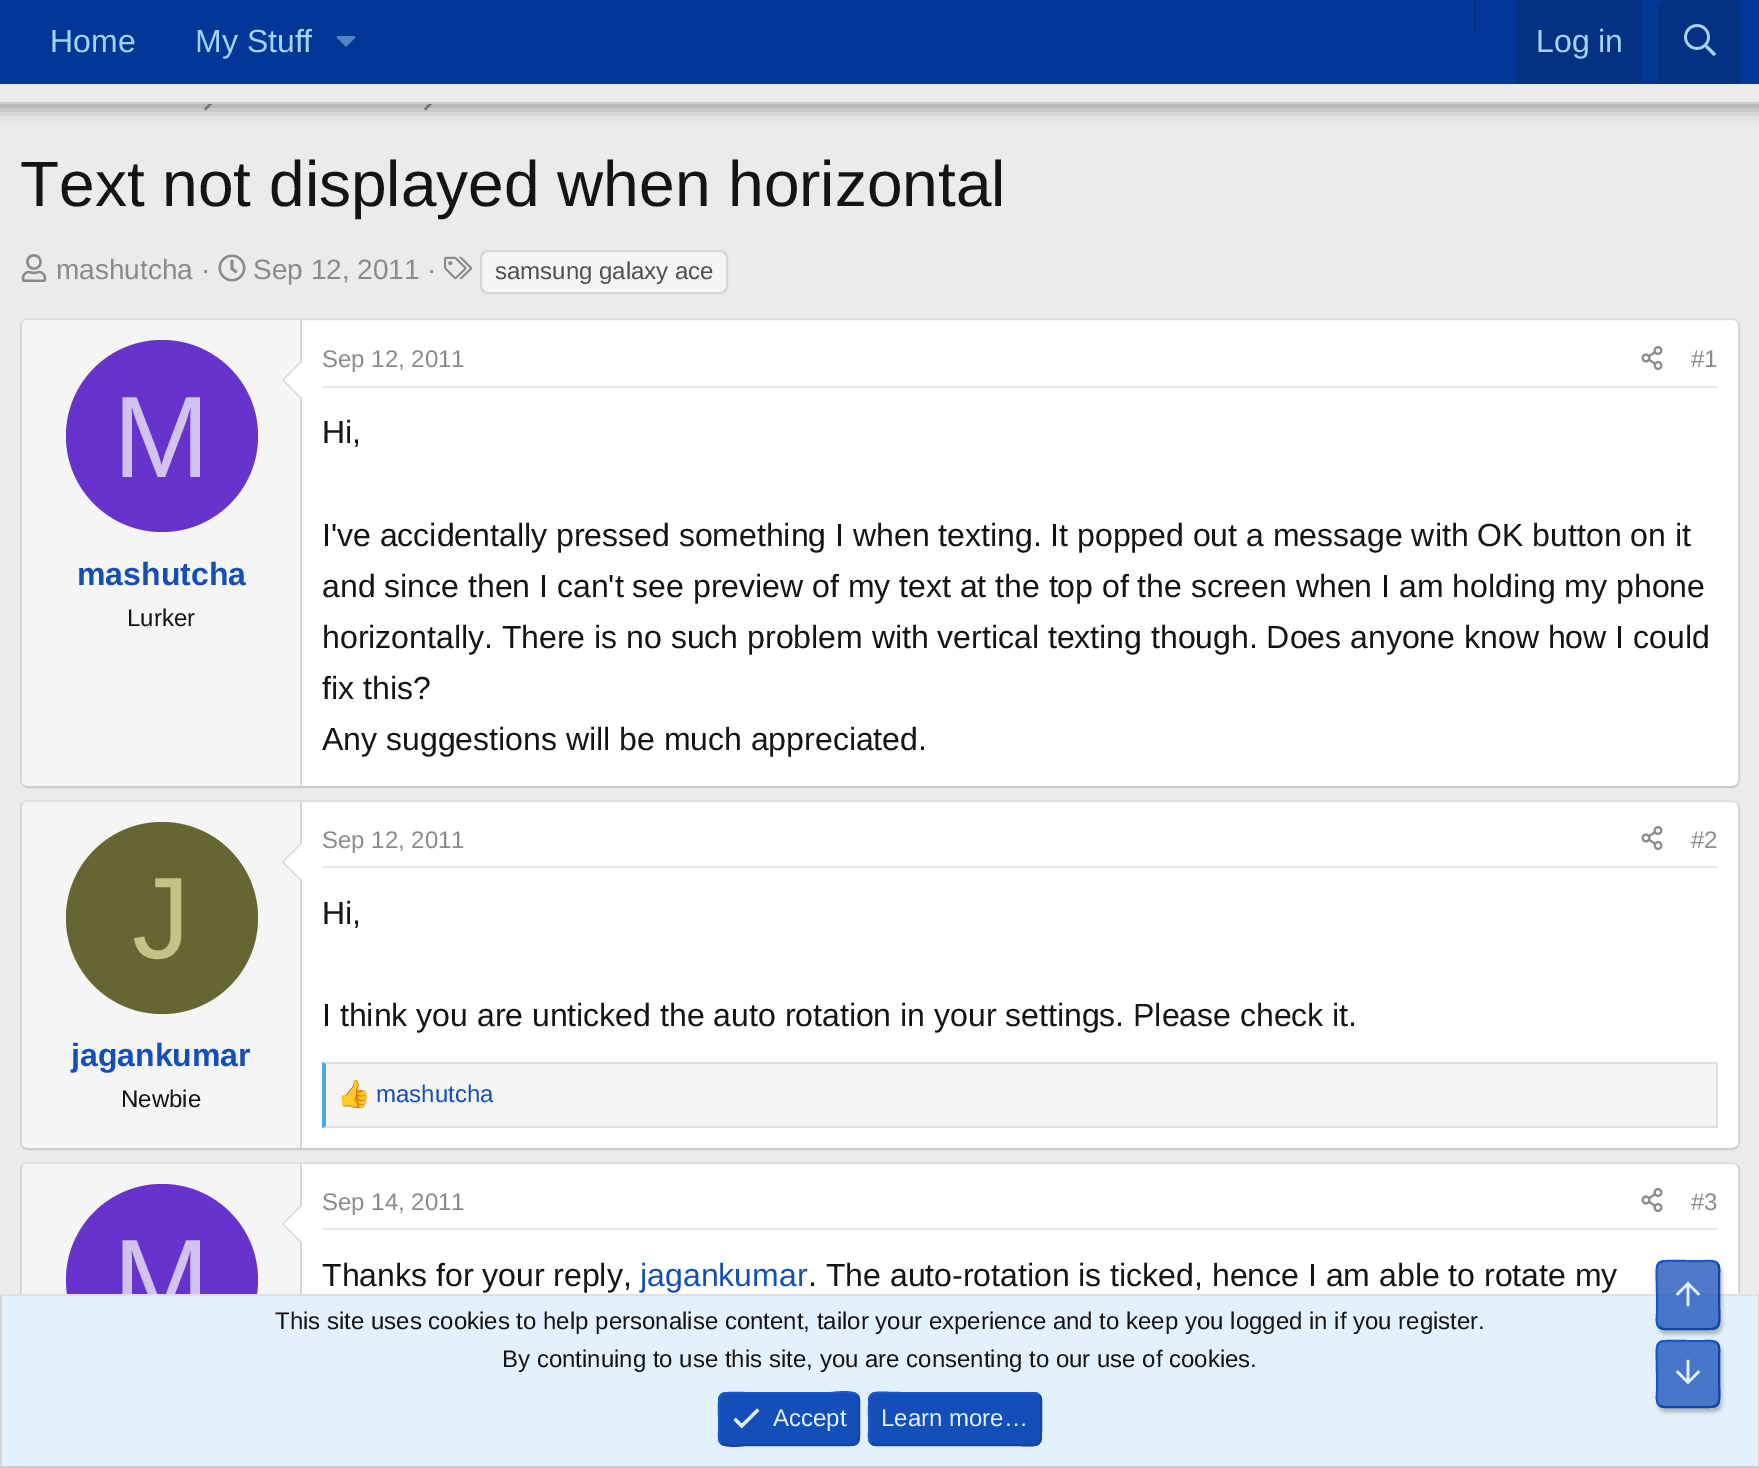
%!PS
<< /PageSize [1759 1468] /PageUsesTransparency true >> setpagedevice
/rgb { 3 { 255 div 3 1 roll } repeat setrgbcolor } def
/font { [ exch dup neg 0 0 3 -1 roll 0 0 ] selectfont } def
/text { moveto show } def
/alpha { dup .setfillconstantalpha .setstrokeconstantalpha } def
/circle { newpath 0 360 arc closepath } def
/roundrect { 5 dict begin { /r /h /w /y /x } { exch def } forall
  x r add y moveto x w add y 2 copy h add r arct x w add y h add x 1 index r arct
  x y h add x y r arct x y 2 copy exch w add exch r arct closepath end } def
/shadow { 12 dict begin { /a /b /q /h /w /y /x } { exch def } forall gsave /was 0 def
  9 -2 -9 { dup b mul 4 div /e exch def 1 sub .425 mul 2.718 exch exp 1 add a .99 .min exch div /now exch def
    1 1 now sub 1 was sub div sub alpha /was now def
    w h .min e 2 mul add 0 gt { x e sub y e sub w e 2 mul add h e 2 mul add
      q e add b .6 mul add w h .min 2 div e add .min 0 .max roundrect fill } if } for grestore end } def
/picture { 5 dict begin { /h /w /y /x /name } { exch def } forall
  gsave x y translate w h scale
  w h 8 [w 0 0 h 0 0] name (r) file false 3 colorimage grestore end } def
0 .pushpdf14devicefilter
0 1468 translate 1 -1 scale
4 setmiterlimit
235 235 235 rgb
0 0 1759 1468 rectfill
(img_03.rgb) 204 104 8 7 picture
(img_03.rgb) 424 104 8 7 picture
0 0 0 rgb
-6 -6 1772 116 0 8 0.3 shadow
2 54 151 rgb
0 0 1759 84 rectfill
(img_01.rgb) 336 36 20 11 picture
5 49 131 rgb
1474 0 2 32 rectfill
1516 0 126 84 rectfill
1666 0 moveto 66 0 rlineto 4.5 0 8 3.5 8 8 rcurveto 0 76 rlineto -82 0 rlineto 0 -76 rlineto 0 -4.5 3.5 -8 8 -8 rcurveto closepath fill
(img_02.rgb) 1684 24 32 32 picture
235 235 235 rgb
0 84 1759 18 rectfill
204 204 204 rgb
0 102 1759 2 rectfill
(img_04.rgb) 21 254 26 28 picture
(img_05.rgb) 218 254 28 28 picture
(img_06.rgb) 444 256 28 24 picture
245 245 245 rgb
481 251 246 42 7 roundrect gsave fill grestore
214 214 214 rgb
2 setlinewidth
stroke
255 255 255 rgb
20 318 1720 470 8 roundrect fill
224 224 224 rgb
23 321 moveto 1.5 -1.5 3 -2 5 -2 rcurveto 1704 0 rlineto 2 0 3.5 0.5 5 2 rcurveto stroke
214 214 214 rgb
1737 321 moveto 1.5 1.5 2 3 2 5 rcurveto 0 454 rlineto 0 2 -0.5 3.5 -2 5 rcurveto stroke
204 204 204 rgb
1737 785 moveto -1.5 1.5 -3 2 -5 2 rcurveto -1704 0 rlineto -2 0 -3.5 -0.5 -5 -2 rcurveto stroke
214 214 214 rgb
23 785 moveto -1.5 -1.5 -2 -3 -2 -5 rcurveto 0 -454 rlineto 0 -2 0.5 -3.5 2 -5 rcurveto stroke
245 245 245 rgb
28 320 moveto 274 0 rlineto 0 466 rlineto -274 0 rlineto -3.5 0 -6 -2.5 -6 -6 rcurveto 0 -454 rlineto 0 -3.5 2.5 -6 6 -6 rcurveto closepath fill
214 214 214 rgb
300 320 2 466 rectfill
302 360 moveto 0 40 rlineto -20 -20 rlineto closepath fill
255 255 255 rgb
302 362 moveto 0 36 rlineto -18 -18 rlineto closepath fill
102 51 204 rgb
162 436 96 circle fill
230 230 230 rgb
322 386 1396 2 rectfill
(img_07.rgb) 1641 346 22 24 picture
255 255 255 rgb
20 800 1720 350 8 roundrect fill
224 224 224 rgb
23 803 moveto 1.5 -1.5 3 -2 5 -2 rcurveto 1704 0 rlineto 2 0 3.5 0.5 5 2 rcurveto stroke
214 214 214 rgb
1737 803 moveto 1.5 1.5 2 3 2 5 rcurveto 0 334 rlineto 0 2 -0.5 3.5 -2 5 rcurveto stroke
204 204 204 rgb
1737 1147 moveto -1.5 1.5 -3 2 -5 2 rcurveto -1704 0 rlineto -2 0 -3.5 -0.5 -5 -2 rcurveto stroke
214 214 214 rgb
23 1147 moveto -1.5 -1.5 -2 -3 -2 -5 rcurveto 0 -334 rlineto 0 -2 0.5 -3.5 2 -5 rcurveto stroke
245 245 245 rgb
28 802 moveto 274 0 rlineto 0 346 rlineto -274 0 rlineto -3.5 0 -6 -2.5 -6 -6 rcurveto 0 -334 rlineto 0 -3.5 2.5 -6 6 -6 rcurveto closepath fill
214 214 214 rgb
300 802 2 346 rectfill
302 842 moveto 0 40 rlineto -20 -20 rlineto closepath fill
255 255 255 rgb
302 844 moveto 0 36 rlineto -18 -18 rlineto closepath fill
102 102 51 rgb
162 918 96 circle fill
230 230 230 rgb
322 866 1396 2 rectfill
(img_07.rgb) 1641 826 22 24 picture
245 245 245 rgb
326 1064 1390 62 rectfill
224 224 224 rgb
322 1062 moveto 1396 0 rlineto -2 2 rlineto -1390 0 rlineto closepath fill
1716 1062 2 66 rectfill
1718 1128 moveto -1396 0 rlineto 4 -2 rlineto 1390 0 rlineto closepath fill
71 167 235 rgb
322 1128 moveto 0 -66 rlineto 4 2 rlineto 0 62 rlineto closepath fill
(img_08.rgb) 341 1080 26 28 picture
255 255 255 rgb
20 1162 1720 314 8 roundrect fill
224 224 224 rgb
23 1165 moveto 1.5 -1.5 3 -2 5 -2 rcurveto 1704 0 rlineto 2 0 3.5 0.5 5 2 rcurveto stroke
214 214 214 rgb
1737 1165 moveto 1.5 1.5 2 3 2 5 rcurveto 0 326 rlineto 0 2 -0.5 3.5 -2 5 rcurveto stroke
23 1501 moveto -1.5 -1.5 -2 -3 -2 -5 rcurveto 0 -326 rlineto 0 -2 0.5 -3.5 2 -5 rcurveto stroke
245 245 245 rgb
28 1164 moveto 274 0 rlineto 0 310 rlineto -274 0 rlineto -3.5 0 -6 -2.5 -6 -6 rcurveto 0 -298 rlineto 0 -3.5 2.5 -6 6 -6 rcurveto closepath fill
214 214 214 rgb
300 1164 2 130 rectfill
302 1204 moveto 0 40 rlineto -20 -20 rlineto closepath fill
255 255 255 rgb
302 1206 moveto 0 36 rlineto -18 -18 rlineto closepath fill
102 51 204 rgb
162 1280 96 circle fill
230 230 230 rgb
322 1228 1396 2 rectfill
(img_07.rgb) 1641 1188 22 24 picture
/LiberationSans-Regular 32 font
163 212 245 rgb
(Home) 50 52 text
(My Stuff) 195 52 text
(Log in) 1536 52 text
/LiberationSans-Regular 64 font
20 20 20 rgb
(Text not displayed when horizontal) 20 206 text
/LiberationSans-Regular 28 font
138 138 138 rgb
(mashutcha ·) 56 279 text
(Sep 12, 2011 ·) 253 279 text
/LiberationSans-Regular 24 font
79 79 79 rgb
(samsung galaxy ace) 495 279 text
/LiberationSans-Regular 116 font
209 194 240 rgb
(M) 113 477 text
/LiberationSans-Bold 32 font
20 78 184 rgb
(mashutcha) 77 585 text
/LiberationSans-Regular 24 font
20 20 20 rgb
(Lurker) 127 626 text
138 138 138 rgb
(Sep 12, 2011) 322 367 text
(#1) 1691 367 text
/LiberationSans-Regular 32 font
20 20 20 rgb
(Hi,) 322 443 text
(I've accidentally pressed something I when texting. It popped out a message with OK button on it) 322 546 text
(and since then I can't see preview of my text at the top of the screen when I am holding my phone) 322 597 text
(horizontally. There is no such problem with vertical texting though. Does anyone know how I could) 322 648 text
(fix this?) 322 699 text
(Any suggestions will be much appreciated.) 322 750 text
/LiberationSans-Regular 116 font
195 195 136 rgb
(J) 132 958 text
/LiberationSans-Bold 32 font
20 78 184 rgb
(jagankumar) 71 1066 text
/LiberationSans-Regular 24 font
20 20 20 rgb
(Newbie) 121 1107 text
138 138 138 rgb
(Sep 12, 2011) 322 848 text
(#2) 1691 848 text
/LiberationSans-Regular 32 font
20 20 20 rgb
(Hi,) 322 924 text
(I think you are unticked the auto rotation in your settings. Please check it.) 322 1026 text
/LiberationSans-Regular 24 font
20 78 184 rgb
(mashutcha) 376 1102 text
/LiberationSans-Regular 116 font
209 194 240 rgb
(M) 113 1320 text
/LiberationSans-Regular 24 font
138 138 138 rgb
(Sep 14, 2011) 322 1210 text
(#3) 1691 1210 text
/LiberationSans-Regular 32 font
20 20 20 rgb
(Thanks for your reply,) 322 1286 text
20 78 184 rgb
(jagankumar) 640 1286 text
20 20 20 rgb
(. The auto-rotation is ticked, hence I am able to rotate my) 808 1286 text
227 241 253 rgb
2 1296 1756 170 rectfill
224 224 224 rgb
0 1294 1759 2 rectfill
214 214 214 rgb
1758 1294 1 174 rectfill
204 204 204 rgb
0 1466 1759 2 rectfill
214 214 214 rgb
0 1294 2 174 rectfill
/LiberationSans-Regular 24 font
20 20 20 rgb
(This site uses cookies to help personalise content, tailor your experience and to keep you logged in if you register.) 275 1329 text
(By continuing to use this site, you are consenting to our use of cookies.) 502 1367 text
20 78 184 rgb
718 1392 142 54 8 roundrect fill
18 68 161 rgb
857 1395 moveto 3 3 2 7.5 2 11.5 rcurveto 0 12.5 rlineto 0 30 3.5 26 -28 26 rcurveto -84 0 rlineto -2 0 -21 3 -26 -2 rcurveto stroke
23 87 207 rgb
721 1443 moveto -3 -3 -2 -7.5 -2 -11.5 rcurveto 0 -12.5 rlineto 0 -30 -3.5 -26 28 -26 rcurveto 84 0 rlineto 2 0 21 -3 26 2 rcurveto stroke
(img_09.rgb) 733 1408 27 21 picture
227 241 253 rgb
(Accept) 773 1426 text
20 78 184 rgb
868 1392 174 54 8 roundrect fill
18 68 161 rgb
1039 1395 moveto 3 3 2 7.5 2 11.5 rcurveto 0 12.5 rlineto 0 32 3 26 -33.5 26 rcurveto -131.5 0 rlineto -2 0 -3.5 -0.5 -5 -2 rcurveto stroke
23 87 207 rgb
871 1443 moveto -3 -3 -2 -7.5 -2 -11.5 rcurveto 0 -12.5 rlineto 0 -32 -3 -26 33.5 -26 rcurveto 131.5 0 rlineto 2 0 3.5 0.5 5 2 rcurveto stroke
227 241 253 rgb
(Learn more…) 881 1426 text
gsave
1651 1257 moveto 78 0 rlineto 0 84 rlineto -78 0 rlineto closepath 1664 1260 moveto 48 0 rlineto 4.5 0 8 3.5 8 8 rcurveto 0 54 rlineto 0 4.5 -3.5 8 -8 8 rcurveto -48 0 rlineto -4.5 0 -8 -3.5 -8 -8 rcurveto 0 -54 rlineto 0 -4.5 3.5 -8 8 -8 rcurveto closepath eoclip newpath
0 0 0 rgb
1658 1264 64 70 8 2 0.25 shadow
grestore
0.75 alpha
20 78 184 rgb
1656 1260 64 70 8 roundrect fill
1 alpha
18 68 161 rgb
1717 1263 moveto 3.5 3.5 2 10 2 14 rcurveto 0 18 rlineto 0 38.5 6.5 34 -31 34 rcurveto -16 0 rlineto -4 0 -9.5 1 -13 -2 rcurveto stroke
23 87 207 rgb
1659 1327 moveto -3.5 -3.5 -2 -10 -2 -14 rcurveto 0 -18 rlineto 0 -38.5 -6.5 -34 31 -34 rcurveto 16 0 rlineto 4 0 9.5 -1 13 2 rcurveto stroke
(img_10.rgb) 1676 1281 24 26 picture
gsave
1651 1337 moveto 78 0 rlineto 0 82 rlineto -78 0 rlineto closepath 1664 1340 moveto 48 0 rlineto 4.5 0 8 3.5 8 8 rcurveto 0 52 rlineto 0 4.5 -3.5 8 -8 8 rcurveto -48 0 rlineto -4.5 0 -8 -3.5 -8 -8 rcurveto 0 -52 rlineto 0 -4.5 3.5 -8 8 -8 rcurveto closepath eoclip newpath
0 0 0 rgb
1658 1344 64 68 8 2 0.25 shadow
grestore
0.75 alpha
20 78 184 rgb
1656 1340 64 68 8 roundrect fill
1 alpha
18 68 161 rgb
1717 1343 moveto 3.5 3.5 2 10 2 13.5 rcurveto 0 17.5 rlineto 0 37.5 6 33 -31 33 rcurveto -16 0 rlineto -4 0 -9.5 1 -13 -2 rcurveto stroke
23 87 207 rgb
1659 1405 moveto -3.5 -3.5 -2 -10 -2 -13.5 rcurveto 0 -17.5 rlineto 0 -37.5 -6 -33 31 -33 rcurveto 16 0 rlineto 4 0 9.5 -1 13 2 rcurveto stroke
(img_11.rgb) 1676 1359 24 26 picture
.poppdf14devicefilter showpage
